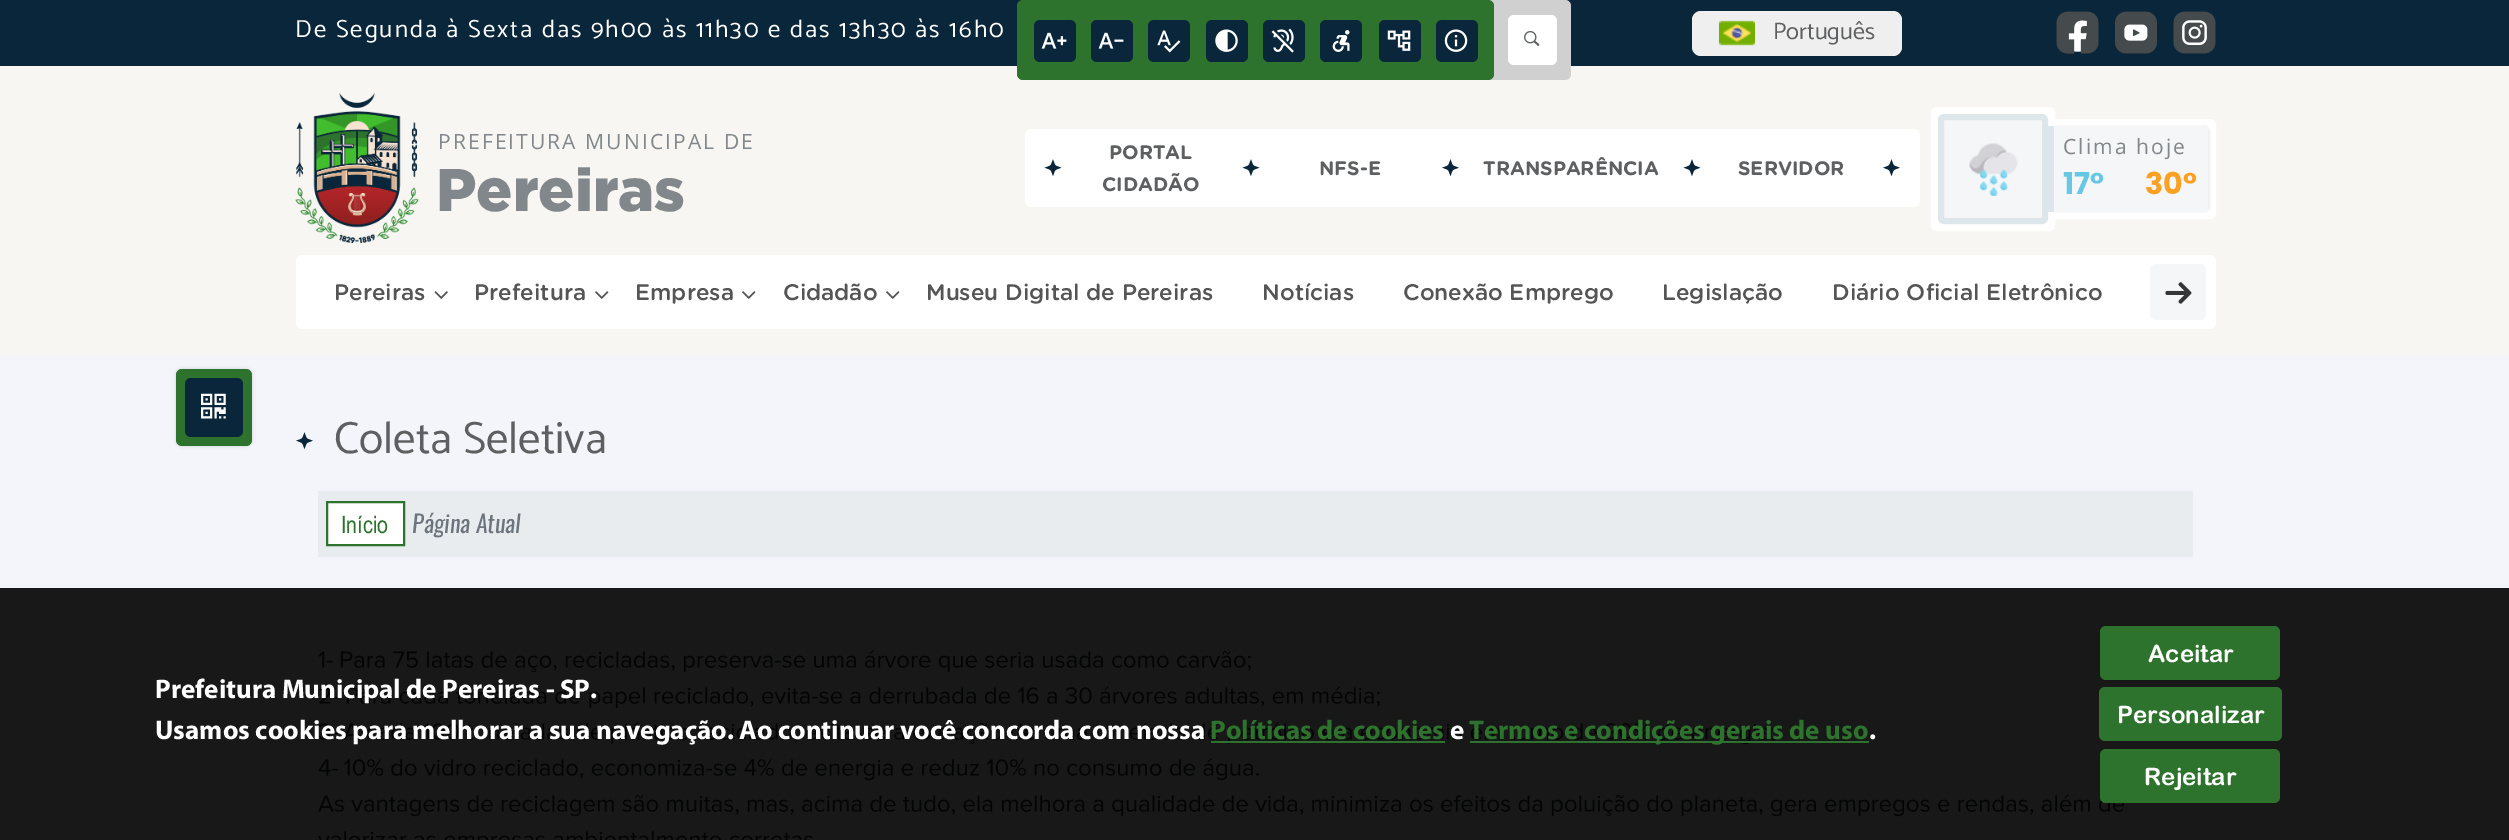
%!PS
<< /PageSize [2509 840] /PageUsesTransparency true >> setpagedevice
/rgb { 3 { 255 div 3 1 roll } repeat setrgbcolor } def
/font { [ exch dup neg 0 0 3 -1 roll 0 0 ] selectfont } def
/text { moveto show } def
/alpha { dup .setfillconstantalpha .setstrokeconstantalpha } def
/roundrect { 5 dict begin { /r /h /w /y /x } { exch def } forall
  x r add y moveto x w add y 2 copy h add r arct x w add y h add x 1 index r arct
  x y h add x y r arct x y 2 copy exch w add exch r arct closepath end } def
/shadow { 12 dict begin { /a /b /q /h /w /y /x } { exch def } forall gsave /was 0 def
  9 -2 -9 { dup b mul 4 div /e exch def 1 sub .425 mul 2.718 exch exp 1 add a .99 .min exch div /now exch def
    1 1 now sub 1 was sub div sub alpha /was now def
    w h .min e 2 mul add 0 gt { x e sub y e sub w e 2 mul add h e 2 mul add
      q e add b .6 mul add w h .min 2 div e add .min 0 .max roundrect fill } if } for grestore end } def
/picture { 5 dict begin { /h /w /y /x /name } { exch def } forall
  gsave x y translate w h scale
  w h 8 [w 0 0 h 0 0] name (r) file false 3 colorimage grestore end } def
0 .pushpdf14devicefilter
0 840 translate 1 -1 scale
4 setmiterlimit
247 246 242 rgb
0 0 2509 840 rectfill
10 38 58 rgb
0 0 2509 66 rectfill
208 208 208 rgb
1092 0 479 80 6 roundrect fill
45 114 45 rgb
1017 0 477 80 6 roundrect fill
gsave
1034 20 42 42 5 roundrect clip newpath
10 38 58 rgb
1034 20 42 42 6 roundrect fill
grestore
(img_01.rgb) 1041 32 26 17 picture
gsave
1091 20 42 42 5 roundrect clip newpath
10 38 58 rgb
1091 20 42 42 6 roundrect fill
grestore
(img_02.rgb) 1098 32 26 17 picture
gsave
1148 20 42 42 5 roundrect clip newpath
10 38 58 rgb
1148 20 42 42 6 roundrect fill
grestore
(img_03.rgb) 1157 30 24 23 picture
gsave
1206 20 42 42 5 roundrect clip newpath
10 38 58 rgb
1206 20 42 42 6 roundrect fill
grestore
(img_04.rgb) 1215 29 23 23 picture
gsave
1263 20 42 42 5 roundrect clip newpath
10 38 58 rgb
1263 20 42 42 6 roundrect fill
grestore
(img_05.rgb) 1271 28 23 25 picture
gsave
1320 20 42 42 5 roundrect clip newpath
10 38 58 rgb
1320 20 42 42 6 roundrect fill
grestore
(img_06.rgb) 1332 30 18 22 picture
gsave
1379 20 42 42 5 roundrect clip newpath
10 38 58 rgb
1379 20 42 42 6 roundrect fill
grestore
(img_07.rgb) 1387 30 24 21 picture
gsave
1436 20 42 42 5 roundrect clip newpath
10 38 58 rgb
1436 20 42 42 6 roundrect fill
grestore
(img_08.rgb) 1444 29 24 23 picture
255 255 255 rgb
1508 15 49 50 6 roundrect fill
(img_09.rgb) 1524 30 16 16 picture
239 239 239 rgb
1692 11 210 45 9 roundrect fill
(img_10.rgb) 1719 20 36 26 picture
gsave 2057 12 42 42 6 roundrect clip newpath 2078 33 translate 30 30 scale
<< /ShadingType 3 /ColorSpace /DeviceRGB /Coords [0 0 0 0 0 1] /Extend [true true] /Function << /FunctionType 3 /Domain [0 1] /Functions [<< /FunctionType 2 /Domain [0 1] /C0 [1 1 1] /C1 [1 1 1] /N 1 >> << /FunctionType 2 /Domain [0 1] /C0 [1 1 1] /C1 [0.039 0.149 0.227] /N 1 >> << /FunctionType 2 /Domain [0 1] /C0 [0.039 0.149 0.227] /C1 [0.039 0.149 0.227] /N 1 >>] /Bounds [0.6 0.65] /Encode [0 1 0 1 0 1] >> >> shfill grestore
(img_11.rgb) 2056 11 43 43 picture
gsave 2115 12 42 42 6 roundrect clip newpath 2136 33 translate 30 30 scale
<< /ShadingType 3 /ColorSpace /DeviceRGB /Coords [0 0 0 0 0 1] /Extend [true true] /Function << /FunctionType 3 /Domain [0 1] /Functions [<< /FunctionType 2 /Domain [0 1] /C0 [1 1 1] /C1 [1 1 1] /N 1 >> << /FunctionType 2 /Domain [0 1] /C0 [1 1 1] /C1 [0.039 0.149 0.227] /N 1 >> << /FunctionType 2 /Domain [0 1] /C0 [0.039 0.149 0.227] /C1 [0.039 0.149 0.227] /N 1 >>] /Bounds [0.6 0.65] /Encode [0 1 0 1 0 1] >> >> shfill grestore
(img_12.rgb) 2115 11 42 43 picture
gsave 2174 12 42 42 6 roundrect clip newpath 2195 33 translate 30 30 scale
<< /ShadingType 3 /ColorSpace /DeviceRGB /Coords [0 0 0 0 0 1] /Extend [true true] /Function << /FunctionType 3 /Domain [0 1] /Functions [<< /FunctionType 2 /Domain [0 1] /C0 [1 1 1] /C1 [1 1 1] /N 1 >> << /FunctionType 2 /Domain [0 1] /C0 [1 1 1] /C1 [0.039 0.149 0.227] /N 1 >> << /FunctionType 2 /Domain [0 1] /C0 [0.039 0.149 0.227] /C1 [0.039 0.149 0.227] /N 1 >>] /Bounds [0.6 0.65] /Encode [0 1 0 1 0 1] >> >> shfill grestore
(img_13.rgb) 2173 11 43 43 picture
(img_14.rgb) 295 93 124 150 picture
255 255 255 rgb
1025 129 895 78 6 roundrect fill
(img_15.rgb) 1044 159 18 18 picture
(img_15.rgb) 1242 159 18 18 picture
(img_16.rgb) 1442 159 17 18 picture
(img_15.rgb) 1683 159 18 18 picture
(img_16.rgb) 1883 159 17 18 picture
1935 111 116 116 2 roundrect gsave fill grestore
8 setlinewidth
stroke
244 246 248 rgb
1941 117 104 104 3 roundrect gsave fill grestore
221 230 235 rgb
6 setlinewidth
stroke
(img_17.rgb) 1969 143 49 53 picture
255 255 255 rgb
2059 123 moveto 151 0 rlineto 1 0 2 1 2 2 rcurveto 0 88 rlineto 0 1 -1 2 -2 2 rcurveto -151 0 rlineto closepath gsave fill grestore
8 setlinewidth
stroke
236 238 240 rgb
2049 126 161 86 6 1 1 shadow
244 246 248 rgb
2048 126 moveto 154 0 rlineto 3.5 0 6 2.5 6 6 rcurveto 0 74 rlineto 0 3.5 -2.5 6 -6 6 rcurveto -154 0 rlineto closepath fill
221 230 235 rgb
2048 126 6 86 rectfill
255 255 255 rgb
296 255 1920 74 6 roundrect fill
(img_18.rgb) 434 291 14 8 picture
(img_19.rgb) 595 291 14 8 picture
(img_19.rgb) 742 291 14 8 picture
(img_19.rgb) 886 291 14 8 picture
244 246 248 rgb
2200 320 moveto -44 0 rlineto -3 0 -6 -3 -6 -6 rcurveto 0 -44 rlineto 0 -3 3 -6 6 -6 rcurveto 44 0 rlineto 3 0 6 3 6 6 rcurveto 0 44 rlineto 0 3 -3 6 -6 6 rcurveto closepath fill
(img_20.rgb) 2165 282 27 22 picture
244 245 250 rgb
0 356 2509 484 rectfill
(img_21.rgb) 296 432 17 18 picture
233 236 239 rgb
318 491 1875 66 rectfill
255 255 255 rgb
327 502 moveto 77 0 rlineto 0 43 rlineto -77 0 rlineto closepath gsave fill grestore
45 114 45 rgb
2 setlinewidth
stroke
(img_22.rgb) 318 651 15 17 picture
(img_23.rgb) 340 650 911 22 picture
(img_24.rgb) 319 687 20 17 picture
(img_25.rgb) 346 686 1034 22 picture
(img_26.rgb) 318 723 20 17 picture
(img_27.rgb) 343 722 1432 23 picture
(img_28.rgb) 318 759 20 17 picture
(img_29.rgb) 344 758 915 23 picture
(img_30.rgb) 318 794 1807 23 picture
(img_31.rgb) 318 831 495 9 picture
0.9 alpha
0 0 0 rgb
0 588 2509 252 rectfill
1 alpha
45 114 45 rgb
1211 741 234 2 rectfill
1470 741 399 2 rectfill
2100 626 180 54 6 roundrect fill
2099 687 183 54 6 roundrect fill
2100 749 180 54 6 roundrect fill
203 208 214 rgb
176 369 76 77 6 2 1 shadow
45 114 45 rgb
176 369 76 77 6 roundrect fill
10 38 58 rgb
185 378 58 59 6 roundrect fill
(img_32.rgb) 201 393 25 26 picture
/Catamaran-Regular 24.75 font
255 255 255 rgb
295 37 moveto 1.95 0 (De Segunda à Sexta das 9h00 às 11h30 e das 13h30 às 16h0) ashow
/Catamaran-Regular 24 font
94 95 97 rgb
(Português) 1773 39 text
/OpenSans-Regular 21 font
129 135 139 rgb
438 149 moveto 2.1 0 (PREFEITURA MUNICIPAL DE) ashow
/Gotham-Black 60 font
(Pereiras) 436 211 text
/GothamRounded-Bold 19.5 font
94 95 97 rgb
(PORTAL) 1109 159 text
(CIDADÃO) 1102 191 text
(NFS-E) 1319 175 text
(TRANSPARÊNCIA) 1483 175 text
(SERVIDOR) 1738 175 text
/OpenSans-Regular 21 font
129 135 139 rgb
2063 154 moveto 2.1 0 (Clima hoje) ashow
/Poppins-Bold 30 font
102 200 228 rgb
(17°) 2063 194 text
252 160 34 rgb
(30°) 2145 194 text
/GothamRounded-Medium 22.5 font
85 85 85 rgb
(Pereiras) 334 300 text
(Prefeitura) 474 300 text
(Empresa) 635 300 text
(Cidadão) 783 300 text
(Museu Digital de Pereiras) 926 300 text
(Notícias) 1262 300 text
(Conexão Emprego) 1403 300 text
(Legislação) 1662 300 text
(Diário Oficial Eletrônico) 1832 300 text
/Catamaran-Regular 45 font
94 95 97 rgb
(Coleta Seletiva) 334 453 text
/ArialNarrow-Regular 24 font
45 114 45 rgb
(Início) 341 533 text
/Oswald-Italic 24 font
108 117 125 rgb
(Página Atual) 412 533 text
/Myriad-Bold 27 font
255 255 255 rgb
(Prefeitura Municipal de Pereiras - SP.) 155 698 text
(Usamos cookies para melhorar a sua navegação. Ao continuar você concorda com nossa) 155 739 text
45 114 45 rgb
(Políticas de cookies) 1210 739 text
255 255 255 rgb
(e) 1450 739 text
45 114 45 rgb
(Termos e condições gerais de uso) 1469 739 text
255 255 255 rgb
(.) 1869 739 text
/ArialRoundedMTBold-Bold 24 font
(Aceitar) 2148 662 text
(Personalizar) 2117 723 text
(Rejeitar) 2144 785 text
.poppdf14devicefilter showpage
